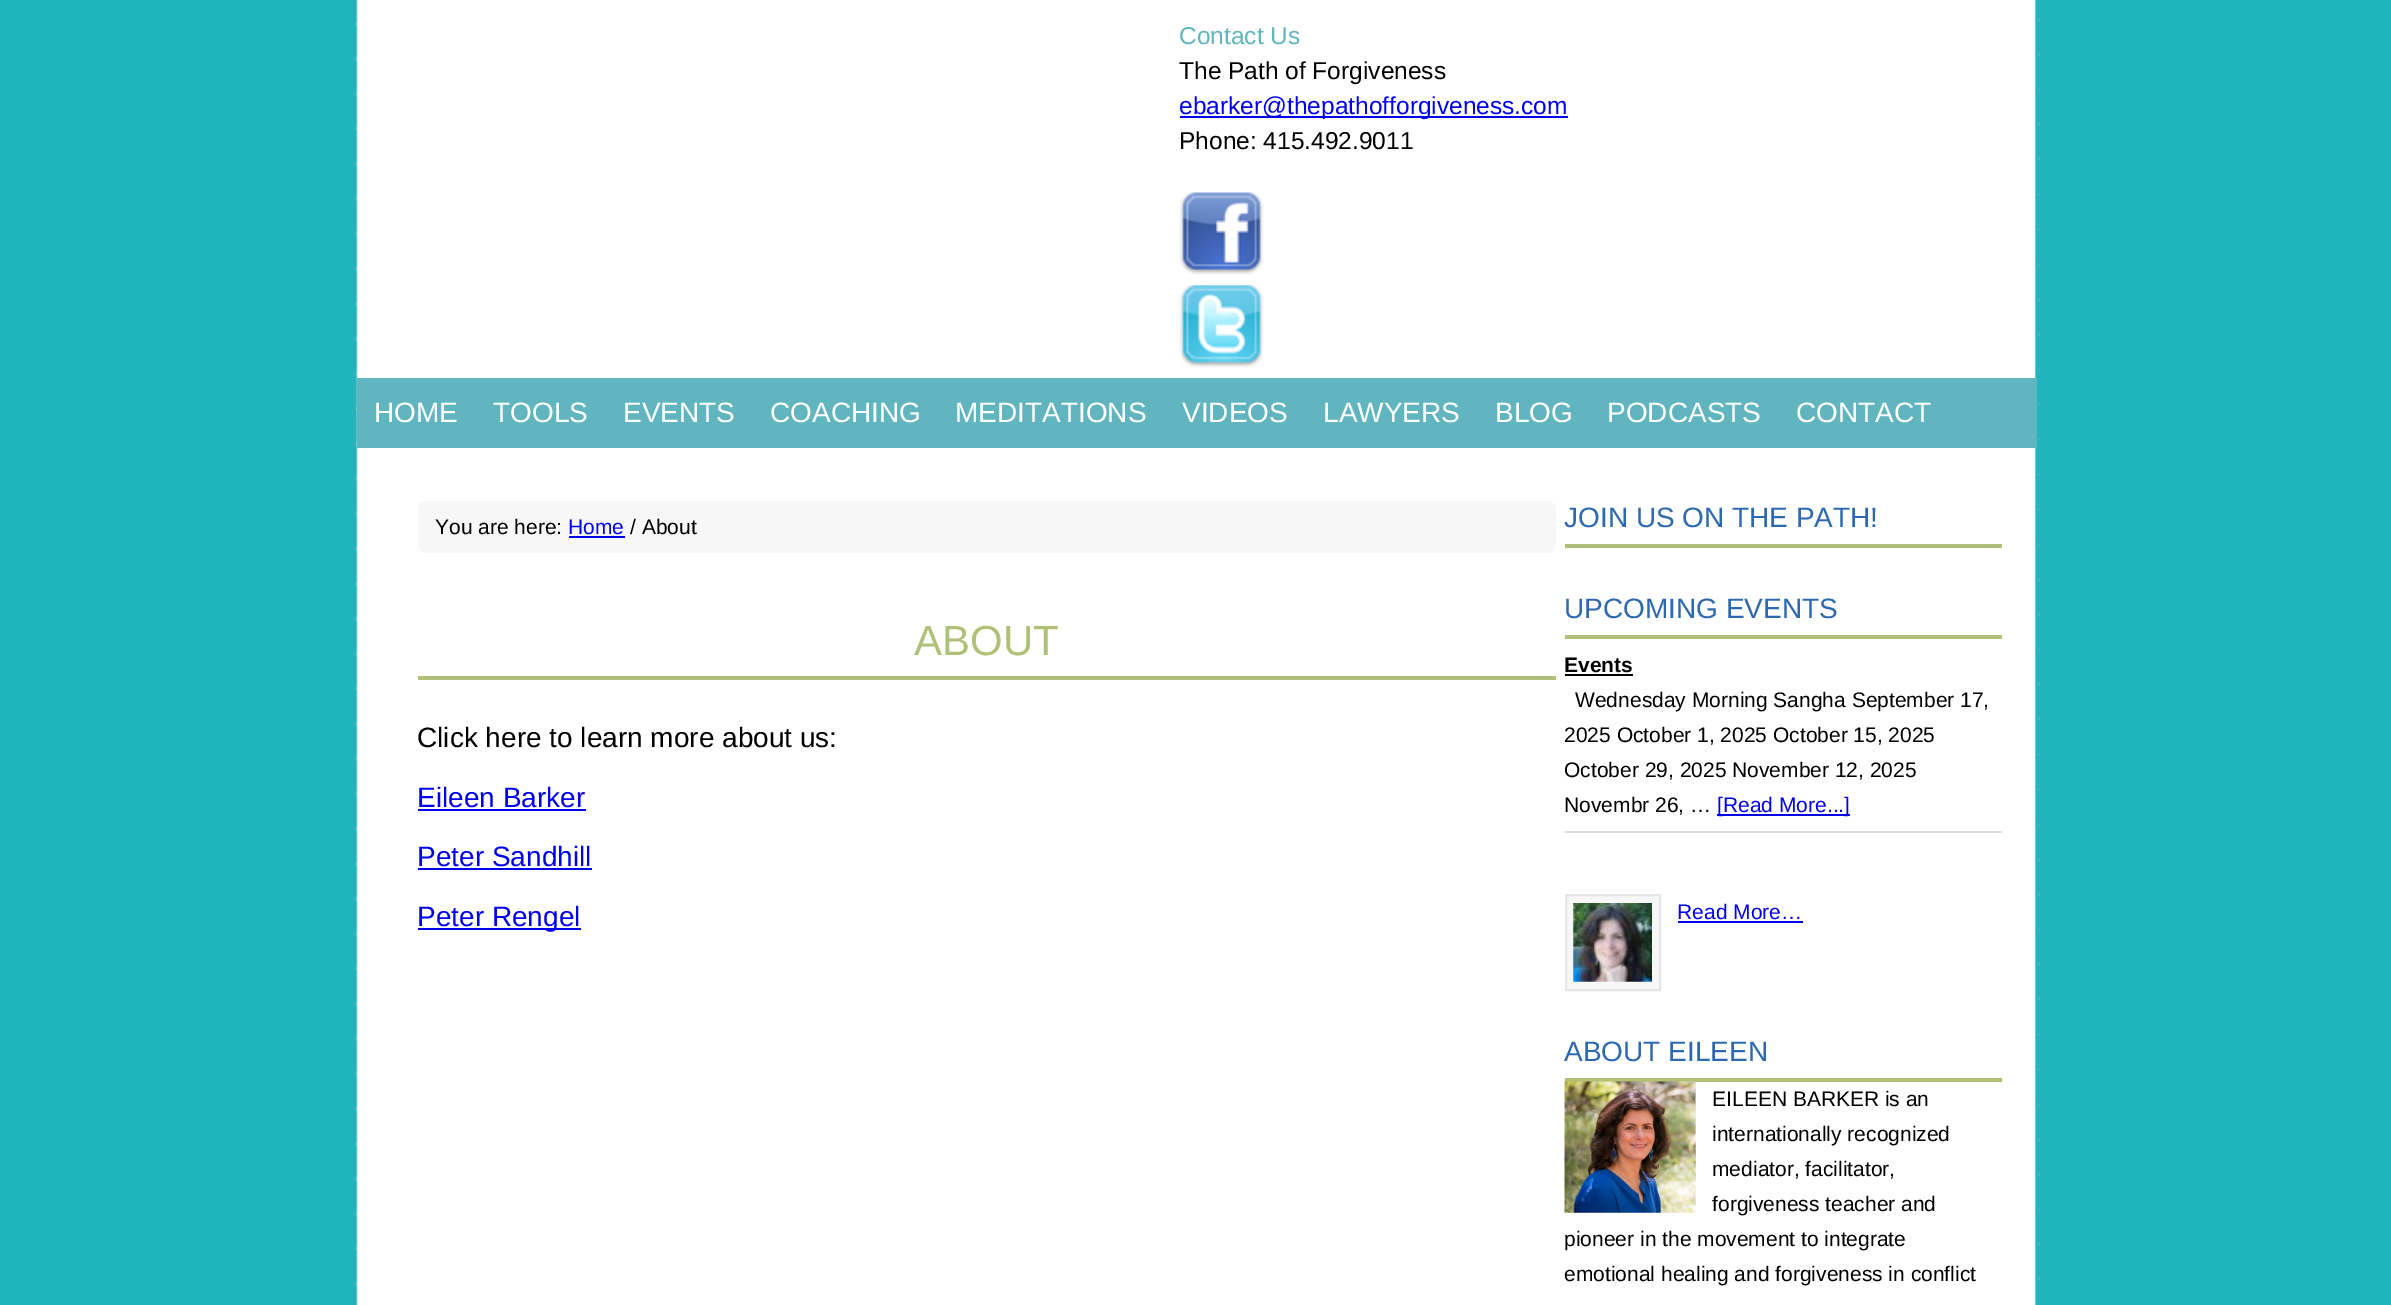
%!PS
<< /PageSize [2391 1305] >> setpagedevice
/rgb { 3 { 255 div 3 1 roll } repeat setrgbcolor } def
/font { [ exch dup neg 0 0 3 -1 roll 0 0 ] selectfont } def
/text { moveto show } def
/roundrect { 5 dict begin { /r /h /w /y /x } { exch def } forall
  x r add y moveto x w add y 2 copy h add r arct x w add y h add x 1 index r arct
  x y h add x y r arct x y 2 copy exch w add exch r arct closepath end } def
/picture { 5 dict begin { /h /w /y /x /name } { exch def } forall
  gsave x y translate w h scale
  w h 8 [w 0 0 h 0 0] name (r) file false 3 colorimage grestore end } def
0 1305 translate 1 -1 scale
4 setmiterlimit
33 180 189 rgb
0 0 2391 1305 rectfill
(img_01.rgb) 355 0 1686 1305 picture
0 0 238 rgb
1180 116 388 2 rectfill
(img_02.rgb) 1179 192 85 83 picture
(img_03.rgb) 1179 285 85 83 picture
96 181 191 rgb
357 378 1680 70 rectfill
247 247 247 rgb
418 501 1138 52 9 roundrect fill
0 0 238 rgb
569 536 56 2 rectfill
176 192 119 rgb
418 676 1138 4 rectfill
0 0 238 rgb
418 809 168 2 rectfill
418 868 174 2 rectfill
418 928 163 2 rectfill
176 192 119 rgb
1565 544 437 4 rectfill
1565 635 437 4 rectfill
221 221 221 rgb
1565 831 437 2 rectfill
0 0 0 rgb
1565 674 68 2 rectfill
0 0 238 rgb
1717 814 133 2 rectfill
247 247 247 rgb
1566 895 moveto 94 0 rlineto 0 95 rlineto -94 0 rlineto closepath gsave fill grestore
230 230 230 rgb
2 setlinewidth
stroke
(img_04.rgb) 1573 903 79 79 picture
0 0 238 rgb
1678 921 125 2 rectfill
176 192 119 rgb
1565 1078 437 4 rectfill
(img_05.rgb) 1564 1081 132 132 picture
/LiberationSans-Regular 24.5 font
96 181 191 rgb
(Contact Us) 1179 44 text
0 0 0 rgb
(The Path of Forgiveness) 1179 79 text
0 0 238 rgb
(ebarker@thepathofforgiveness.com) 1179 114 text
0 0 0 rgb
(Phone: 415.492.9011) 1179 149 text
/LiberationSans-Regular 28 font
255 255 255 rgb
(HOME) 374 422 text
(TOOLS) 493 422 text
(EVENTS) 623 422 text
(COACHING) 770 422 text
(MEDITATIONS) 955 422 text
(VIDEOS) 1182 422 text
(LAWYERS) 1323 422 text
(BLOG) 1495 422 text
(PODCASTS) 1607 422 text
(CONTACT) 1796 422 text
/LiberationSans-Regular 21 font
0 0 0 rgb
(You are here:) 435 534 text
0 0 238 rgb
(Home) 568 534 text
0 0 0 rgb
(/ About) 630 534 text
/LiberationSans-Regular 42 font
176 192 119 rgb
(ABOUT) 914 655 text
/LiberationSans-Regular 28 font
0 0 0 rgb
(Click here to learn more about us:) 417 747 text
0 0 238 rgb
(Eileen Barker) 417 807 text
(Peter Sandhill) 417 866 text
(Peter Rengel) 417 926 text
45 105 177 rgb
(JOIN US ON THE PATH!) 1564 527 text
(UPCOMING EVENTS) 1564 618 text
/LiberationSans-Bold 21 font
0 0 0 rgb
(Events) 1564 672 text
/LiberationSans-Regular 21 font
(Wednesday Morning Sangha September 17,) 1575 707 text
gsave
1565 639 437 192 rectclip
(2025 October 1, 2025 October 15, 2025) 1564 742 text
(October 29, 2025 November 12, 2025) 1564 777 text
grestore
(Novembr 26, …) 1564 812 text
0 0 238 rgb
([Read More...]) 1717 812 text
(Read More…) 1677 919 text
/LiberationSans-Regular 28 font
45 105 177 rgb
(ABOUT EILEEN) 1564 1061 text
/LiberationSans-Regular 21 font
0 0 0 rgb
(EILEEN BARKER is an) 1712 1106 text
(internationally recognized) 1712 1141 text
(mediator, facilitator,) 1712 1176 text
(forgiveness teacher and) 1712 1211 text
(pioneer in the movement to integrate) 1564 1246 text
(emotional healing and forgiveness in conflict) 1564 1281 text
showpage
